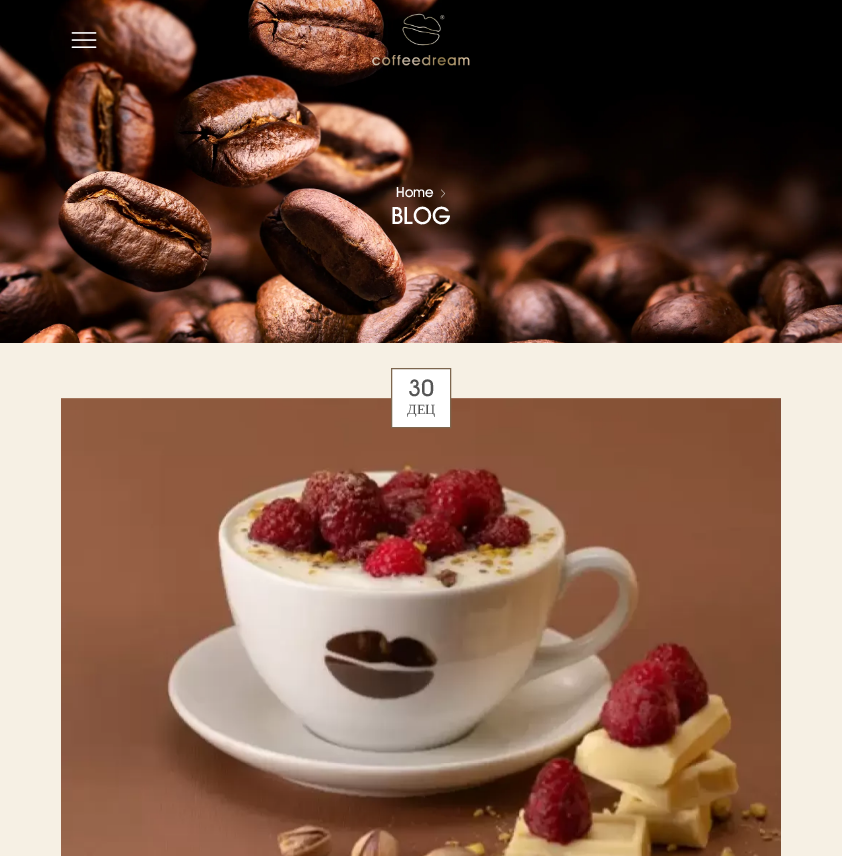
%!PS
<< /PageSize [842 856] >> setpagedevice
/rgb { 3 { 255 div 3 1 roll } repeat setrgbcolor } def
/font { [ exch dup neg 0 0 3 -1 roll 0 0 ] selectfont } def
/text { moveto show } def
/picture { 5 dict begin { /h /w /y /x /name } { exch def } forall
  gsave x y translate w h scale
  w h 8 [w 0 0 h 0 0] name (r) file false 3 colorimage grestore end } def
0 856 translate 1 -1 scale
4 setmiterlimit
246 240 228 rgb
0 0 842 856 rectfill
(img_03.rgb) 0 0 842 343 picture
(img_01.rgb) 71 32 26 16 picture
(img_02.rgb) 372 13 98 53 picture
(img_04.rgb) 441 189 4 9 picture
(img_05.rgb) 61 398 720 458 picture
255 255 255 rgb
391.5 368.5 moveto 59 0 rlineto 0 59 rlineto -59 0 rlineto closepath gsave fill grestore
125 102 78 rgb
stroke
/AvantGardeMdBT-Medium 14 font
255 255 255 rgb
(Home) 396 197 text
/AvantGardeMdBT-Medium 24 font
(BLOG) 391 224 text
/AvantGardeMdBT-Medium 23 font
85 85 85 rgb
(30) 408 396 text
/LiberationSerif-Regular 14 font
(ДЕЦ) 407 414 text
showpage
